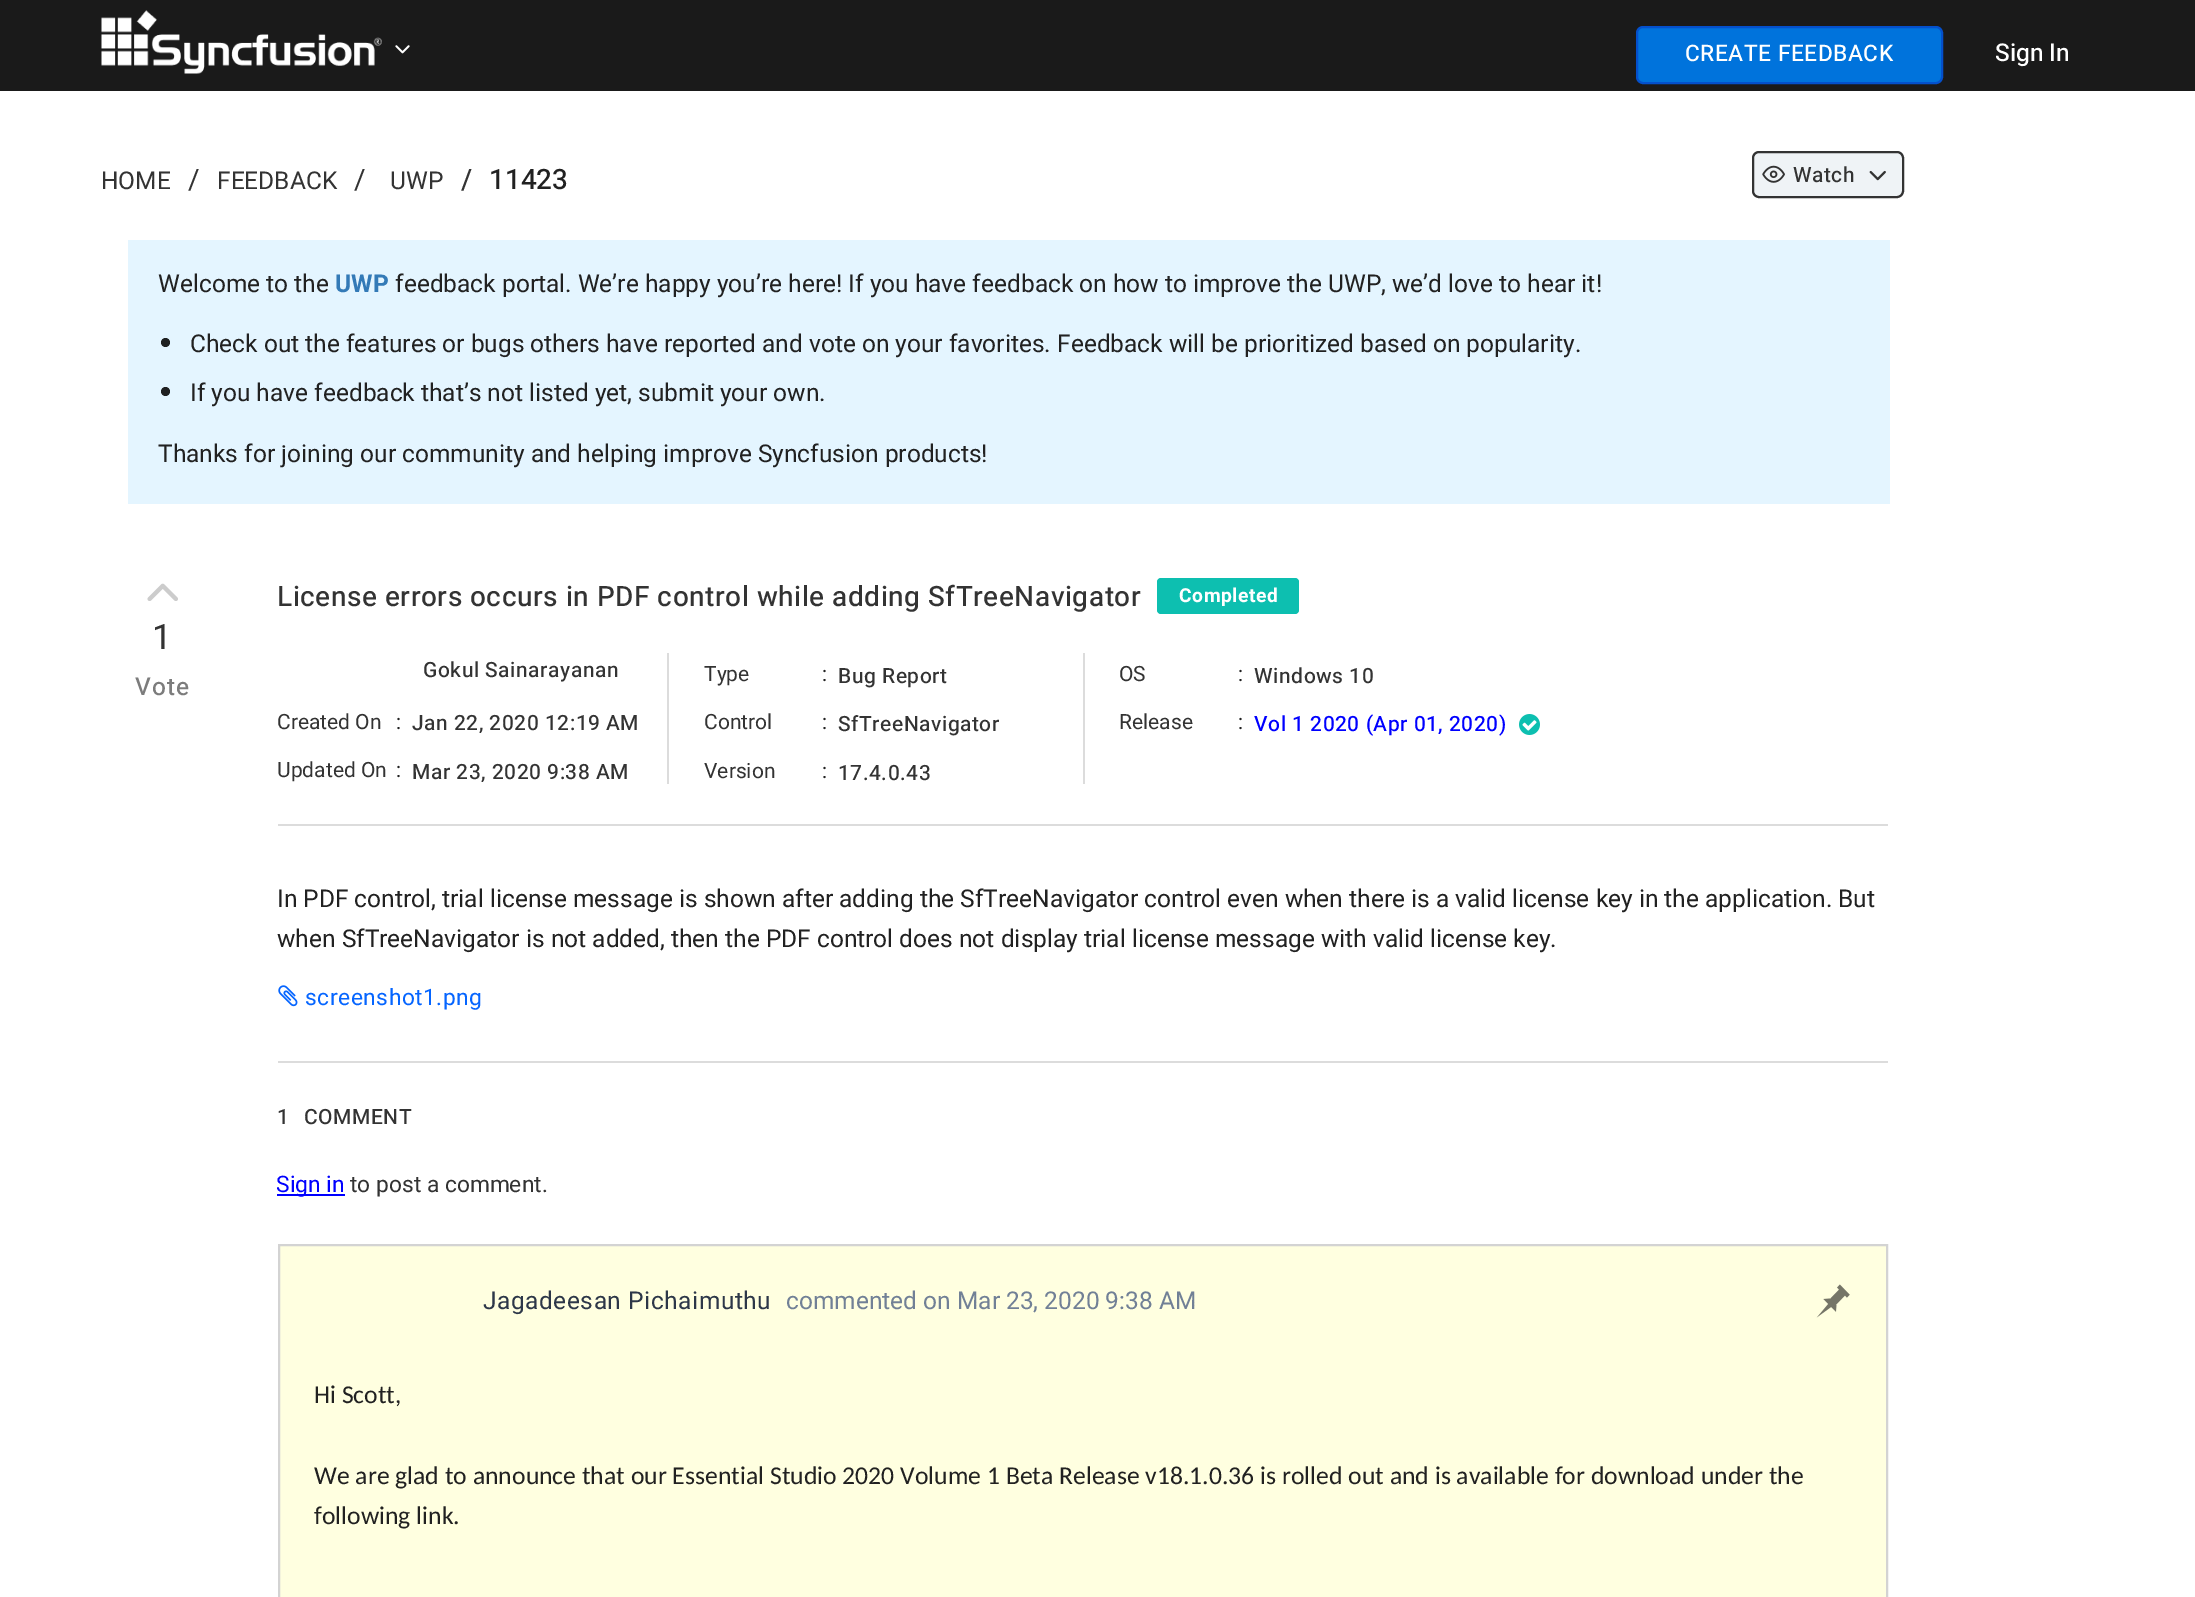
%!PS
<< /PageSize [2195 1597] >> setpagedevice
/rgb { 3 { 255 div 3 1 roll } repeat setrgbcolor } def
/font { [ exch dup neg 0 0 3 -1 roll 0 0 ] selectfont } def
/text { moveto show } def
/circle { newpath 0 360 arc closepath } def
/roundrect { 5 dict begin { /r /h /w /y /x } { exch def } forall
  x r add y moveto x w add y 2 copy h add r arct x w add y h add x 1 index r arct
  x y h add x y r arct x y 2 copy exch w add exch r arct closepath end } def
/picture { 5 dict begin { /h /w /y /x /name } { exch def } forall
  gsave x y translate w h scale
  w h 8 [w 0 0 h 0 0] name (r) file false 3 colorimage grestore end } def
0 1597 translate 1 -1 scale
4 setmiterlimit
255 255 255 rgb
0 0 2195 1597 rectfill
26 26 26 rgb
0 0 2195 91 rectfill
(img_01.rgb) 101 10 281 64 picture
(img_02.rgb) 395 45 15 9 picture
0 115 220 rgb
1637 27 305 56 6 roundrect gsave fill grestore
4 80 204 rgb
2 setlinewidth
stroke
239 243 246 rgb
1753 152 150 45 6 roundrect gsave fill grestore
51 51 51 rgb
stroke
(img_03.rgb) 1762 165 23 18 picture
(img_04.rgb) 1869 170 17 11 picture
228 245 255 rgb
128 240 1762 264 rectfill
30 32 33 rgb
165.5 342.5 4.5 circle fill
165.5 391.5 4.5 circle fill
(img_05.rgb) 147 583 31 18 picture
220 220 220 rgb
278 824 1610 2 rectfill
13 191 176 rgb
1157 578 142 36 4 roundrect fill
220 220 220 rgb
667 653 2 131 rectfill
1083 653 2 131 rectfill
(img_06.rgb) 1519 714 21 21 picture
278 1061 1610 2 rectfill
(img_07.rgb) 278 985 20 22 picture
0 0 255 rgb
277 1194 68 2 rectfill
255 255 224 rgb
279 1245 moveto 1608 0 rlineto 0 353 rlineto -1608 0 rlineto closepath gsave fill grestore
211 211 211 rgb
stroke
(img_08.rgb) 1816 1284 34 34 picture
/Heebo-Medium 22.75 font
255 255 255 rgb
1685 61 moveto 0.53 0 (CREATE FEEDBACK) ashow
/Heebo-Medium 24.5 font
(Sign In) 1995 61 text
/Heebo-Regular 24.5 font
51 51 51 rgb
(HOME) 101 189 text
/Heebo-Regular 28 font
(/) 188 189 text
/Heebo-Regular 24.5 font
(FEEDBACK) 217 189 text
/Heebo-Regular 28 font
(/) 354 189 text
/Heebo-Regular 24.5 font
(UWP) 390 189 text
/Heebo-Medium 28 font
(/) 461 189 text
33 33 33 rgb
(11423) 489 189 text
/Heebo-Medium 21 font
51 51 51 rgb
1793 182 moveto 0.5 0 (Watch) ashow
/Heebo-Regular 24.5 font
33 33 33 rgb
(Welcome to the) 158 292 text
/Heebo-Bold 24.5 font
51 122 183 rgb
(UWP) 335 292 text
/Heebo-Regular 24.5 font
33 33 33 rgb
(feedback portal. We’re happy you’re here! If you have feedback on how to improve the UWP, we’d love to hear it!) 395 292 text
(Check out the features or bugs others have reported and vote on your favorites. Feedback will be prioritized based on popularity.) 190 352 text
(If you have feedback that’s not listed yet, submit your own.) 190 401 text
(Thanks for joining our community and helping improve Syncfusion products!) 158 462 text
/Heebo-Regular 35 font
51 51 51 rgb
152 649 moveto 1 0 (1) ashow
/Heebo-Medium 24.5 font
124 124 124 rgb
135 695 moveto 1 0 (Vote) ashow
/Heebo-Medium 28 font
51 51 51 rgb
277 606 moveto 0.53 0 (License errors occurs in PDF control while adding SfTreeNavigator) ashow
/Heebo-Bold 19.25 font
255 255 255 rgb
1179 602 moveto 0.53 0 (Completed) ashow
/Heebo-Medium 21 font
51 51 51 rgb
423 677 moveto 0.53 0 (Gokul Sainarayanan) ashow
/Heebo-Regular 21 font
(Created On) 277 729 text
33 33 33 rgb
(:) 396 729 text
/Heebo-Medium 21 font
51 51 51 rgb
412 730 moveto 0.53 0 (Jan 22, 2020 12:19 AM) ashow
/Heebo-Regular 21 font
(Updated On) 277 777 text
33 33 33 rgb
(:) 396 777 text
/Heebo-Medium 21 font
51 51 51 rgb
412 779 moveto 0.53 0 (Mar 23, 2020 9:38 AM) ashow
/Heebo-Regular 21 font
(Type) 704 681 text
33 33 33 rgb
(:) 822 681 text
/Heebo-Medium 21 font
51 51 51 rgb
838 683 moveto 0.53 0 (Bug Report) ashow
/Heebo-Regular 21 font
(Control) 704 729 text
33 33 33 rgb
(:) 822 729 text
/Heebo-Medium 21 font
51 51 51 rgb
838 731 moveto 0.53 0 (SfTreeNavigator) ashow
/Heebo-Regular 21 font
(Version) 704 778 text
33 33 33 rgb
(:) 822 778 text
/Heebo-Medium 21 font
51 51 51 rgb
838 780 moveto 0.53 0 (17.4.0.43) ashow
/Heebo-Regular 21 font
(OS) 1119 681 text
33 33 33 rgb
(:) 1238 681 text
/Heebo-Medium 21 font
51 51 51 rgb
1254 683 moveto 0.53 0 (Windows 10) ashow
/Heebo-Regular 21 font
(Release) 1119 729 text
33 33 33 rgb
(:) 1238 729 text
/Heebo-Medium 21 font
0 0 255 rgb
1254 731 moveto 0.53 0 (Vol 1 2020 \(Apr 01, 2020\)) ashow
/Heebo-Regular 24.5 font
33 33 33 rgb
(In PDF control, trial license message is shown after adding the SfTreeNavigator control even when there is a valid license key in the application. But) 277 907 text
(when SfTreeNavigator is not added, then the PDF control does not display trial license message with valid license key.) 277 947 text
/Heebo-Regular 22.75 font
5 101 255 rgb
305 1005 moveto 0.53 0 (screenshot1.png) ashow
/Heebo-Medium 21 font
51 51 51 rgb
277 1124 moveto 0.53 0 (1) ashow
304 1124 moveto 0.53 0 (COMMENT) ashow
/Heebo-Regular 22.75 font
0 0 255 rgb
(Sign in) 276 1192 text
51 51 51 rgb
(to post a comment.) 350 1192 text
/Heebo-Regular 24.5 font
45 55 72 rgb
483 1309 moveto 0.53 0 (Jagadeesan Pichaimuthu) ashow
113 128 150 rgb
(commented on Mar 23, 2020 9:38 AM) 786 1309 text
/Carlito-Regular 25.67 font
33 33 33 rgb
(Hi Scott,) 314 1403 text
(We are glad to announce that our Essential Studio 2020 Volume 1 Beta Release v18.1.0.36 is rolled out and is available for download under the) 314 1484 text
(following link.) 314 1524 text
showpage
